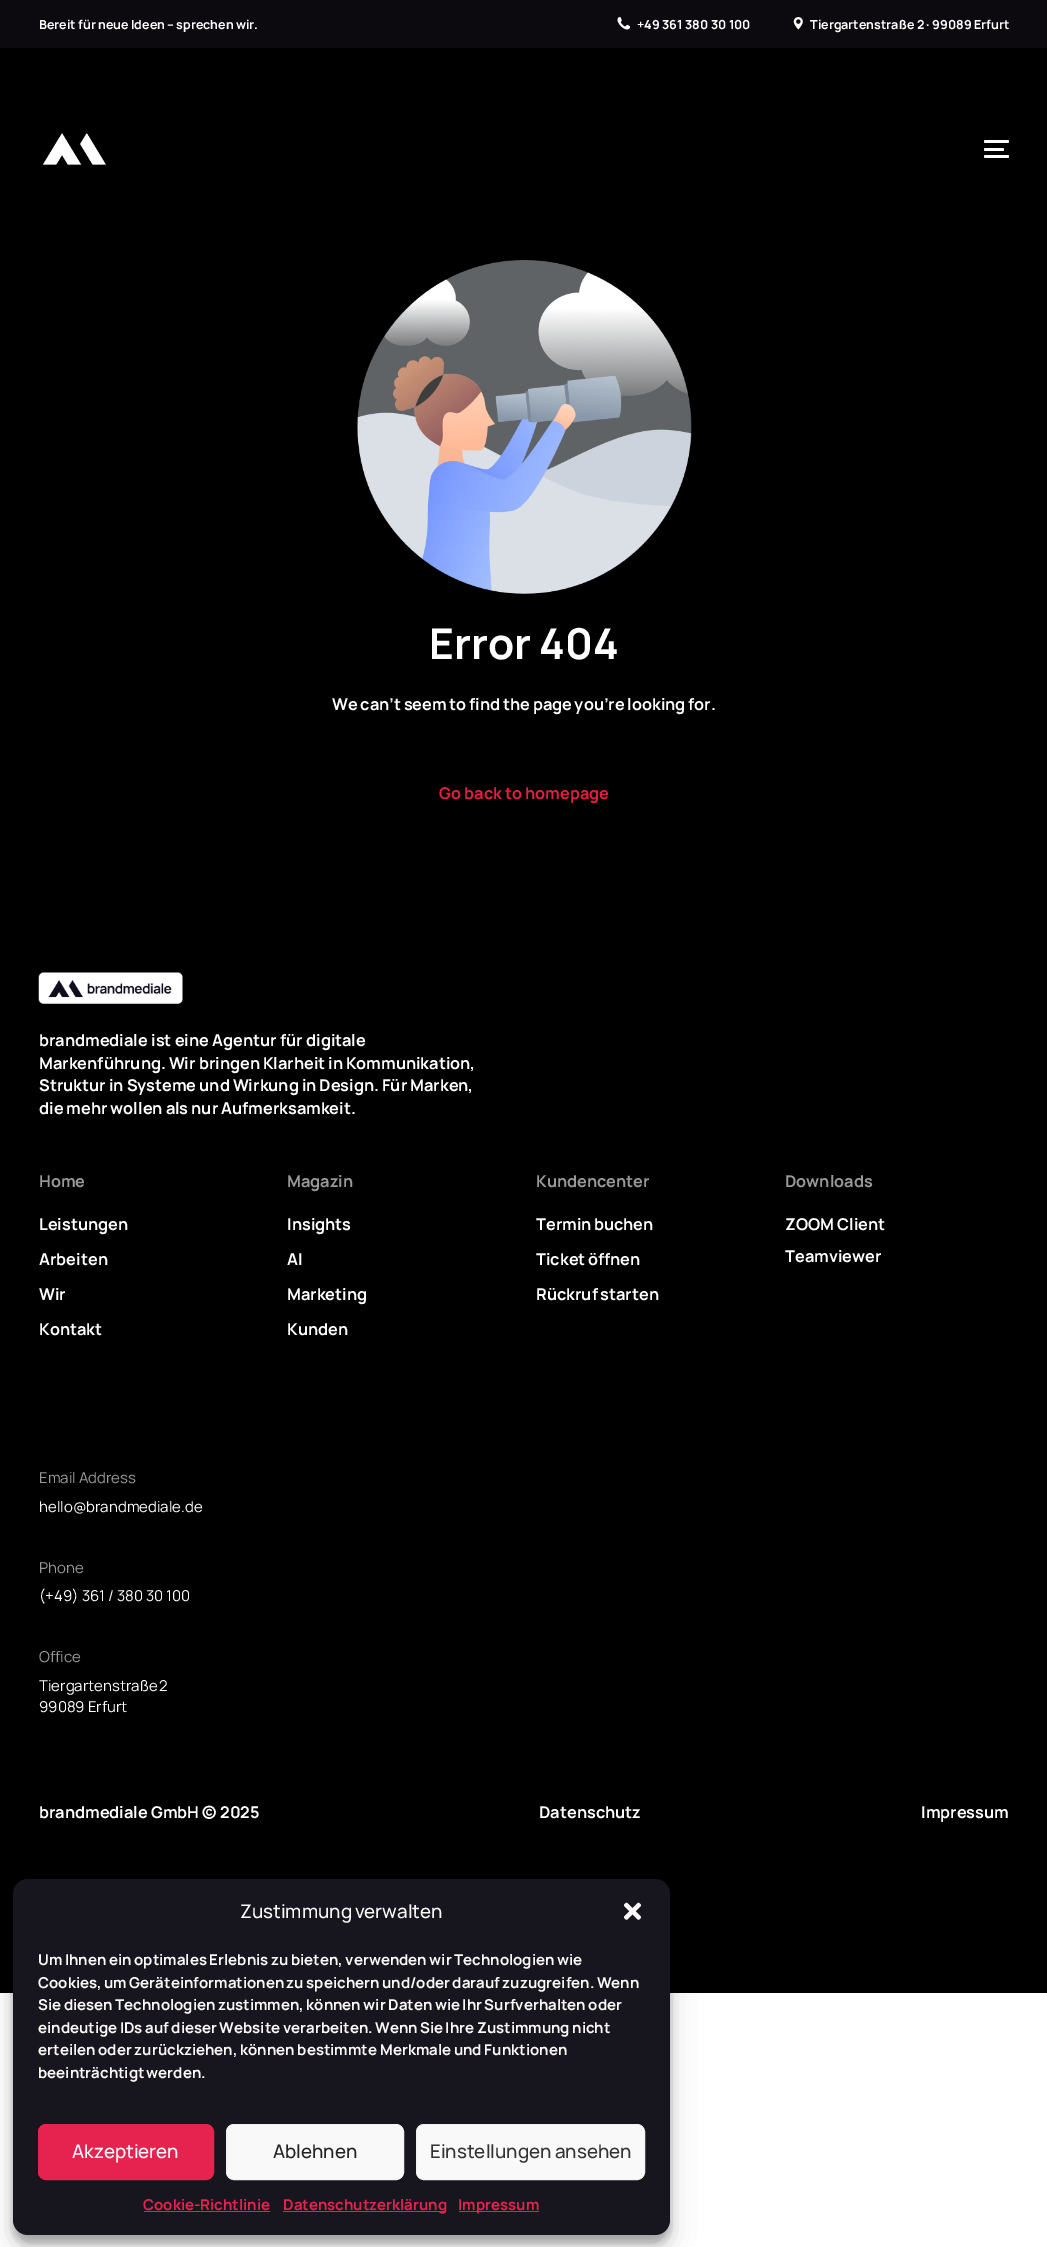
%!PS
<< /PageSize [1047 2247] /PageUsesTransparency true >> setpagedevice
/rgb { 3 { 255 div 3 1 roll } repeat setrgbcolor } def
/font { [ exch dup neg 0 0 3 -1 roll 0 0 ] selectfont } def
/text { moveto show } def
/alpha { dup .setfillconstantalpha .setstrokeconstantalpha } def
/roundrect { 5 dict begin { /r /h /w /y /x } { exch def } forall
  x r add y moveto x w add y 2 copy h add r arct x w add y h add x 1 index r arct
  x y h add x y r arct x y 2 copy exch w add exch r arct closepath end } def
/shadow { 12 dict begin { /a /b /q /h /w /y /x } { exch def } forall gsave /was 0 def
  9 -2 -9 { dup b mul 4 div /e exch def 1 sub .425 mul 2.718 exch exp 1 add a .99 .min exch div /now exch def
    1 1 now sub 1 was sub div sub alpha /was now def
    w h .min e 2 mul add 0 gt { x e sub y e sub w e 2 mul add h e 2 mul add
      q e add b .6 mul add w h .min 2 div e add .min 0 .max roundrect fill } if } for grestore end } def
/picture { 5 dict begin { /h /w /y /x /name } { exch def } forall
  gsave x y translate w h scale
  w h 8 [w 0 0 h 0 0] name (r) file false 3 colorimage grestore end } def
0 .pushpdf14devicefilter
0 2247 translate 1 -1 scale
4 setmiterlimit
255 255 255 rgb
0 0 1047 2247 rectfill
0 0 0 rgb
0 48 1047 1945 rectfill
12 10 15 rgb
0 0 1047 48 rectfill
(img_01.rgb) 617 17 13 13 picture
(img_02.rgb) 793 17 10 13 picture
(img_03.rgb) 42 133 64 32 picture
255 255 255 rgb
984 140 25 3 1.5 roundrect fill
984 148 20 3 1.5 roundrect fill
984 155 25 3 1.5 roundrect fill
(img_04.rgb) 357 260 335 334 picture
(img_05.rgb) 38 972 145 32 picture
0 0 0 rgb
13 1886 657 357 15 4 0.23 shadow
13 1891 657 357 15 12.5 0.19 shadow
23 21 29 rgb
13 1879 657 356 15 roundrect fill
(img_06.rgb) 623 1902 19 18 picture
230 34 79 rgb
38.5 2124.5 175 55 7.5 roundrect gsave fill grestore
stroke
249 249 249 rgb
226.5 2124.5 177 55 7.5 roundrect gsave fill grestore
242 242 242 rgb
stroke
249 249 249 rgb
416.5 2124.5 228 55 7.5 roundrect gsave fill grestore
242 242 242 rgb
stroke
230 34 79 rgb
144 2211 126 1 rectfill
283 2211 163 1 rectfill
459 2211 80 1 rectfill
/Manrope-Bold 12.5 font
255 255 255 rgb
39 29 moveto -0.25 0 32 (Bereit für neue Ideen – sprechen wir.) widthshow
(+49 361 380 30 100) 637 29 text
(Tiergartenstraße 2 · 99089 Erfurt) 810 29 text
/Manrope-Bold 42.5 font
429 659 moveto -0.5 0 32 (Error 404) widthshow
/Manrope-Bold 16.25 font
332 710 moveto -0.5 0 32 (We can’t seem to find the page you’re looking for.) widthshow
230 31 64 rgb
(Go back to homepage) 439 799 text
255 255 255 rgb
(brandmediale ist eine Agentur für digitale) 39 1046 text
39 1069 moveto -0.25 0 32 (Markenführung. Wir bringen Klarheit in Kommunikation,) widthshow
39 1091 moveto -0.25 0 32 (Struktur in Systeme und Wirkung in Design. Für Marken,) widthshow
39 1114 moveto -0.25 0 32 (die mehr wollen als nur Aufmerksamkeit.) widthshow
153 153 153 rgb
(Home) 39 1187 text
255 255 255 rgb
(Leistungen) 39 1230 text
(Arbeiten) 39 1265 text
(Wir) 39 1300 text
(Kontakt) 39 1335 text
153 153 153 rgb
(Magazin) 287 1187 text
255 255 255 rgb
(Insights) 287 1230 text
(AI) 287 1265 text
(Marketing) 287 1300 text
(Kunden) 287 1335 text
153 153 153 rgb
(Kundencenter) 536 1187 text
255 255 255 rgb
536 1230 moveto -1 0 32 (Termin buchen) widthshow
536 1265 moveto -1 0 32 (Ticket öffnen) widthshow
536 1300 moveto -1 0 32 (Rückruf starten) widthshow
153 153 153 rgb
(Downloads) 785 1187 text
255 255 255 rgb
(ZOOM Client) 785 1230 text
(Teamviewer) 785 1262 text
/Manrope-Regular 15 font
153 153 153 rgb
(Email Address) 39 1483 text
255 255 255 rgb
(hello@brandmediale.de) 39 1512 text
153 153 153 rgb
(Phone) 39 1573 text
255 255 255 rgb
(\(+49\) 361 / 380 30 100) 39 1601 text
153 153 153 rgb
(Office) 39 1662 text
255 255 255 rgb
39 1691 moveto -1 0 32 (Tiergartenstraße 2) widthshow
(99089 Erfurt) 39 1712 text
/Manrope-Bold 16.25 font
(brandmediale GmbH © 2025) 39 1818 text
(Datenschutz) 539 1818 text
(Impressum) 921 1818 text
/Manrope-Medium 18.75 font
251 248 248 rgb
240 1918 moveto -1 0 32 (Zustimmung verwalten) widthshow
/Manrope-Bold 15 font
38 1965 moveto -0.4 0 32 (Um Ihnen ein optimales Erlebnis zu bieten, verwenden wir Technologien wie) widthshow
38 1988 moveto -0.5 0 32 (Cookies, um Geräteinformationen zu speichern und/oder darauf zuzugreifen. Wenn) widthshow
38 2010 moveto -0.5 0 32 (Sie diesen Technologien zustimmen, können wir Daten wie Ihr Surfverhalten oder) widthshow
38 2033 moveto -0.5 0 32 (eindeutige IDs auf dieser Website verarbeiten. Wenn Sie Ihre Zustimmung nicht) widthshow
38 2055 moveto -0.25 0 32 (erteilen oder zurückziehen, können bestimmte Merkmale und Funktionen) widthshow
38 2078 moveto -1 0 32 (beeinträchtigt werden.) widthshow
/Manrope-Medium 18.75 font
255 255 255 rgb
(Akzeptieren) 72 2158 text
34 34 34 rgb
(Ablehnen) 273 2158 text
51 51 51 rgb
(Einstellungen ansehen) 430 2158 text
/Manrope-Bold 15 font
230 34 79 rgb
(Cookie-Richtlinie) 143 2210 text
(Datenschutzerklärung) 283 2210 text
(Impressum) 458 2210 text
.poppdf14devicefilter showpage
